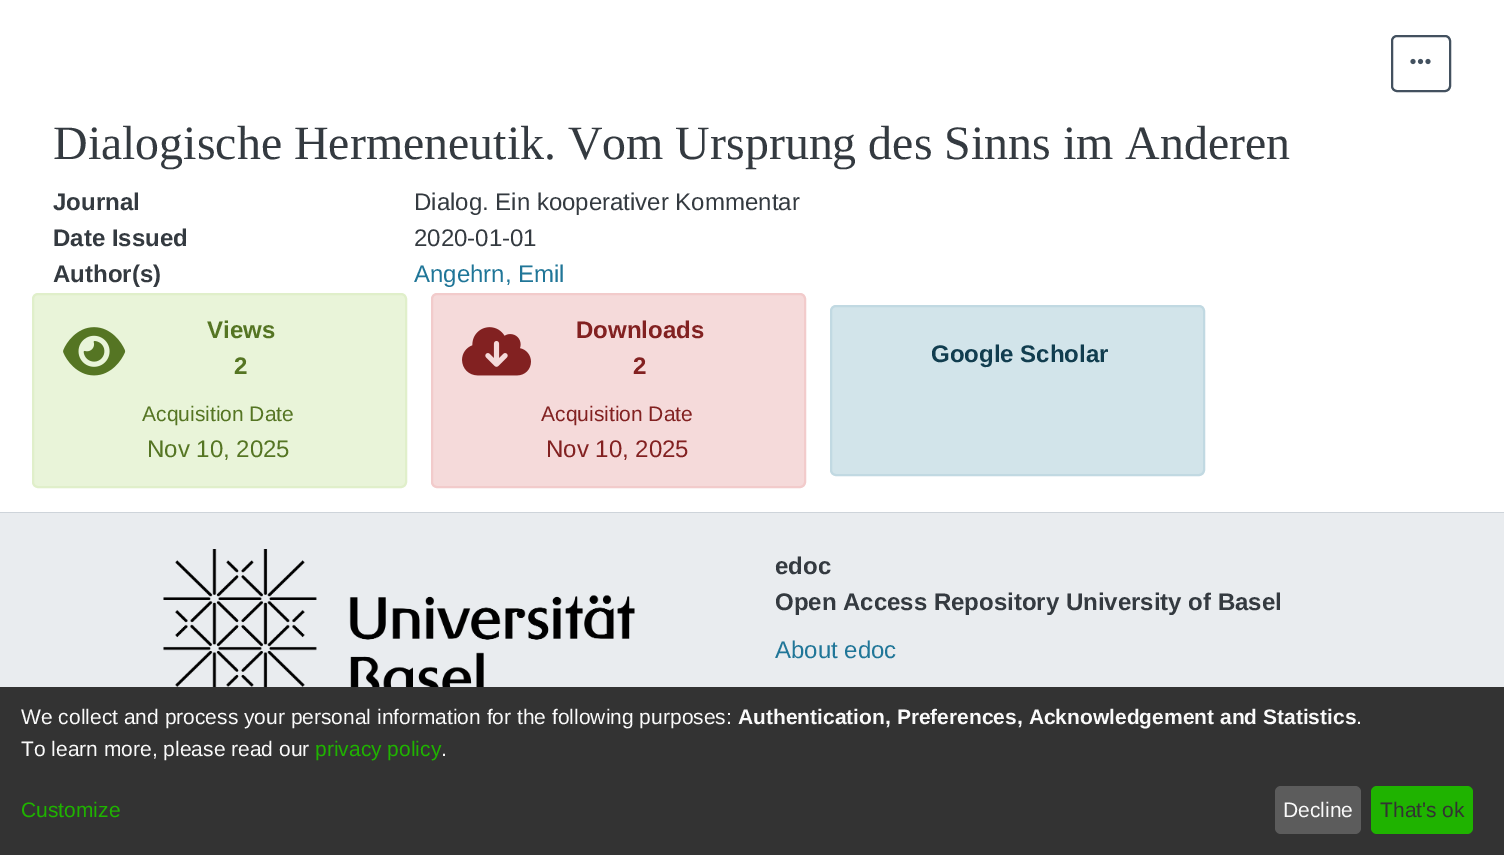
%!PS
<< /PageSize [1504 855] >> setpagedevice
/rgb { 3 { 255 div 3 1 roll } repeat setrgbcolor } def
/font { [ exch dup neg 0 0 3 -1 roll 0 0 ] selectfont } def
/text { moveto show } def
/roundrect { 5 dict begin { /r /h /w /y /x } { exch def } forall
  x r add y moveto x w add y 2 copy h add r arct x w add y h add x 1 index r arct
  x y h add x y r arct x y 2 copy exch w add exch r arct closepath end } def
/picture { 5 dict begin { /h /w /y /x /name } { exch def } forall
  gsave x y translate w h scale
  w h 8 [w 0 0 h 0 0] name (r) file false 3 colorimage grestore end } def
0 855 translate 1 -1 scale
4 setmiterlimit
255 255 255 rgb
0 0 1504 855 rectfill
67 81 95 rgb
2 setlinewidth
1392 36 58 55 5 roundrect stroke
(img_01.rgb) 1410 58 21 7 picture
233 244 217 rgb
33 294 373 193 5 roundrect gsave fill grestore
224 239 202 rgb
stroke
(img_02.rgb) 63 327 63 49 picture
245 218 218 rgb
432 294 373 193 5 roundrect gsave fill grestore
242 203 203 rgb
stroke
(img_03.rgb) 462 327 69 49 picture
210 228 234 rgb
831 306 373 169 5 roundrect gsave fill grestore
193 217 226 rgb
stroke
206 212 218 rgb
0 512 1504 1 rectfill
233 236 239 rgb
0 513 1504 174 rectfill
(img_04.rgb) 163 549 472 138 picture
51 51 51 rgb
0 687 1504 168 rectfill
92 92 92 rgb
1275 786 86 48 6 roundrect fill
31 179 0 rgb
1371 786 102 48 6 roundrect fill
/LiberationSerif-Regular 47.9 font
52 58 64 rgb
(Dialogische Hermeneutik. Vom Ursprung des Sinns im Anderen) 53 159 text
/LiberationSans-Bold 24 font
(Journal) 53 210 text
/LiberationSans-Regular 24 font
(Dialog. Ein kooperativer Kommentar) 414 210 text
/LiberationSans-Bold 24 font
(Date Issued) 53 246 text
/LiberationSans-Regular 24 font
(2020-01-01) 414 246 text
/LiberationSans-Bold 24 font
(Author\(s\)) 53 282 text
/LiberationSans-Regular 24 font
32 118 152 rgb
(Angehrn, Emil) 414 282 text
/LiberationSans-Bold 24 font
85 117 35 rgb
(Views) 207 338 text
(2) 234 374 text
/LiberationSans-Regular 21 font
(Acquisition Date) 142 421 text
/LiberationSans-Regular 24 font
(Nov 10, 2025) 147 457 text
/LiberationSans-Bold 24 font
130 33 33 rgb
(Downloads) 576 338 text
(2) 633 374 text
/LiberationSans-Regular 21 font
(Acquisition Date) 541 421 text
/LiberationSans-Regular 24 font
(Nov 10, 2025) 546 457 text
/LiberationSans-Bold 24 font
17 61 79 rgb
(Google Scholar) 931 362 text
52 58 64 rgb
(edoc) 775 574 text
(Open Access Repository University of Basel) 775 610 text
/LiberationSans-Regular 24 font
32 118 152 rgb
(About edoc) 775 658 text
/LiberationSans-Regular 21 font
250 250 250 rgb
(We collect and process your personal information for the following purposes:) 21 724 text
/LiberationSans-Bold 21 font
(Authentication, Preferences, Acknowledgement and Statistics) 738 724 text
/LiberationSans-Regular 21 font
(.) 1356 724 text
(To learn more, please read our) 21 756 text
31 179 0 rgb
(privacy policy) 315 756 text
250 250 250 rgb
(.) 441 756 text
31 179 0 rgb
(Customize) 21 817 text
250 250 250 rgb
(Decline) 1283 817 text
51 51 51 rgb
(That's ok) 1380 817 text
showpage
